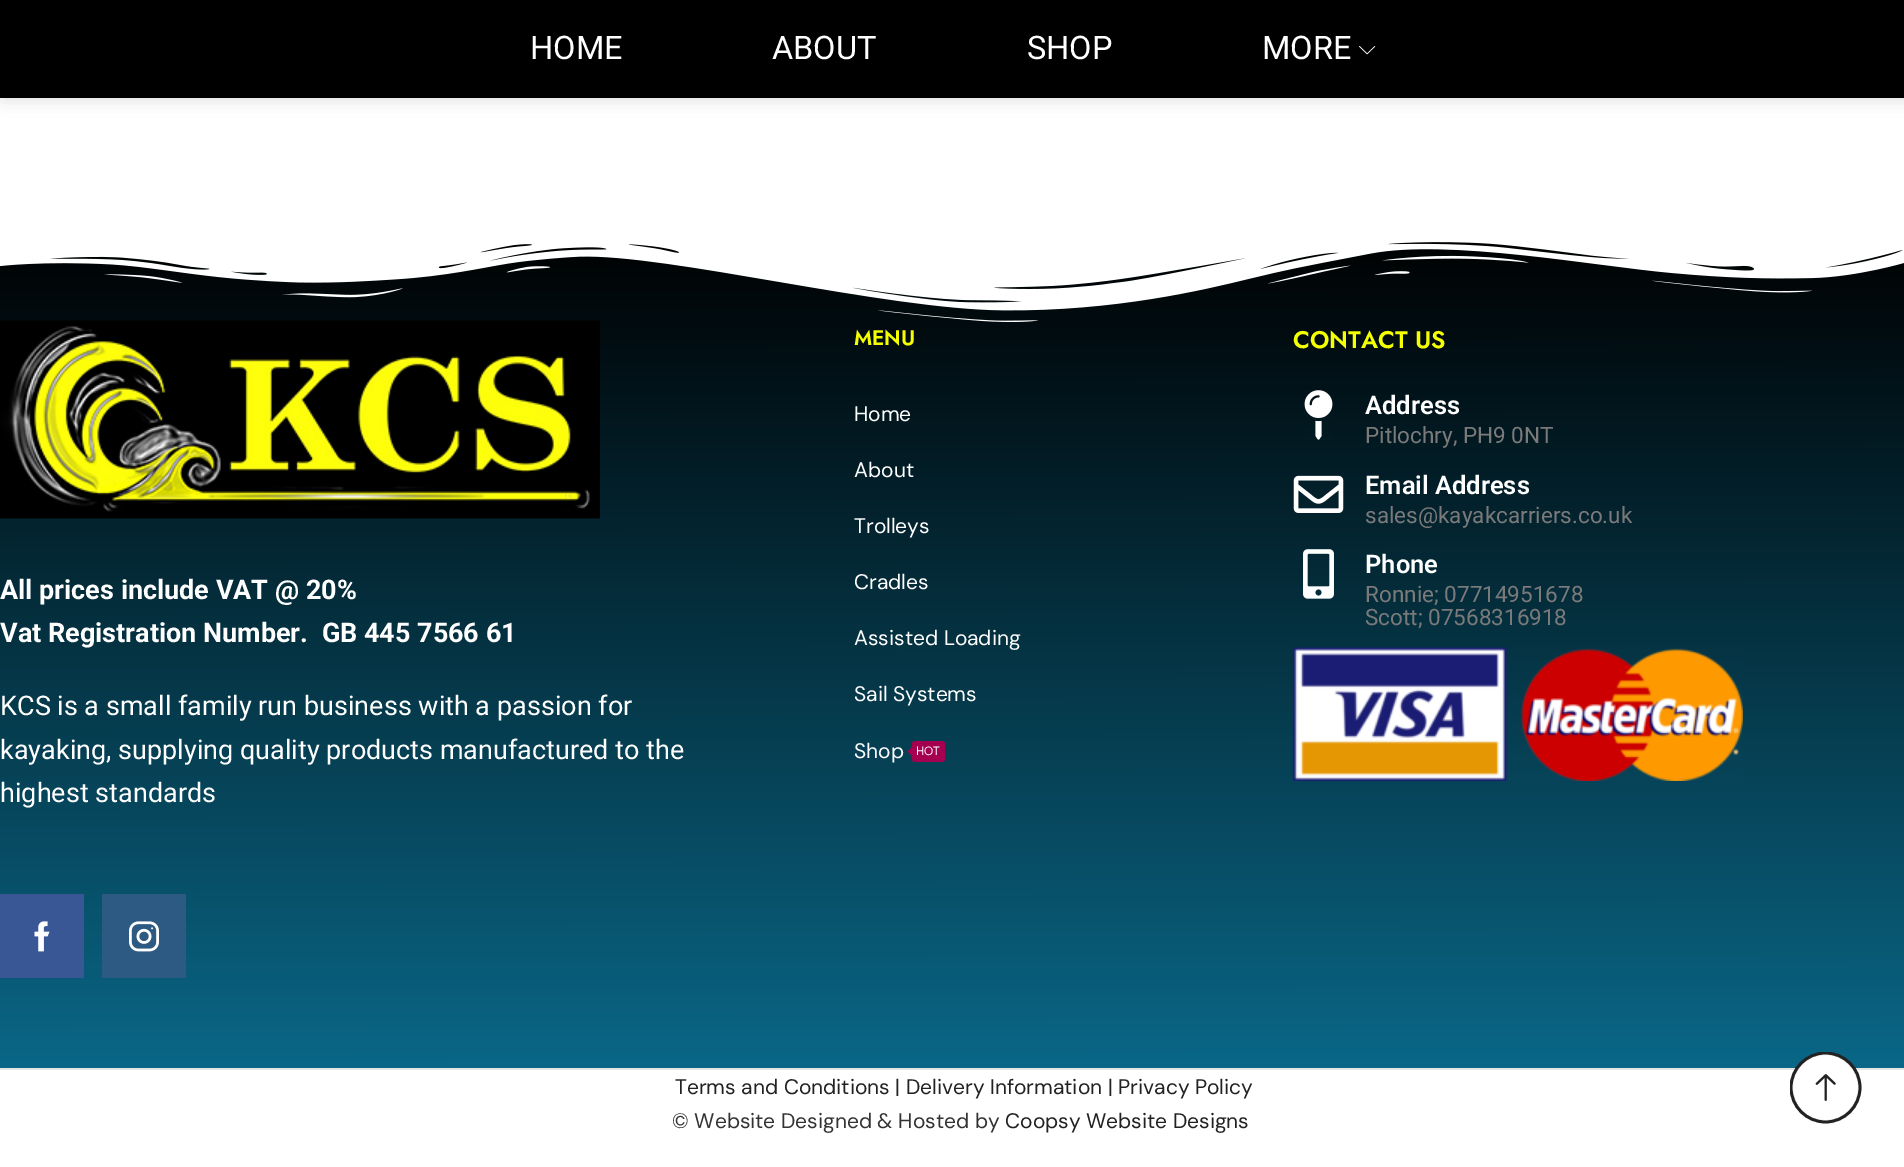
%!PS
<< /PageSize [1904 1167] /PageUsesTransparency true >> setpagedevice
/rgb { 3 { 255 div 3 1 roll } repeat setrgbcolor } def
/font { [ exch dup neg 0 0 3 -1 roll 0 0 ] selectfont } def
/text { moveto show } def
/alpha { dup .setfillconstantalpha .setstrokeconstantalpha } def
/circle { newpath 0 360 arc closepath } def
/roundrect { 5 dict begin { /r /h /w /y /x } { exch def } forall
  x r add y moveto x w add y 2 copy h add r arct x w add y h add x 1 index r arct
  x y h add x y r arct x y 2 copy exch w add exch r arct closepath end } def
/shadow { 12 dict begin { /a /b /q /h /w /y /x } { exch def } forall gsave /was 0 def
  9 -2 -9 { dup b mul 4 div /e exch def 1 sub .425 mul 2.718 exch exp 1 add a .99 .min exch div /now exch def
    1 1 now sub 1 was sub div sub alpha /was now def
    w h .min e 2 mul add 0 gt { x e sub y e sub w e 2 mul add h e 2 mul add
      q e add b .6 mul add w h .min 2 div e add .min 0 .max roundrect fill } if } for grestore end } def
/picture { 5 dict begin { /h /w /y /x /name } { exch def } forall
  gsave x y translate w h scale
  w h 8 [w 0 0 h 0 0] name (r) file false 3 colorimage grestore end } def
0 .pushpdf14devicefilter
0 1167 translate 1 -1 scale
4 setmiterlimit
255 255 255 rgb
0 0 1904 1167 rectfill
0 0 0 rgb
3 0 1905 98 0 9 0.15 shadow
0 0 1904 98 rectfill
(img_01.rgb) 1359 46 17 9 picture
gsave 0 242 moveto 1904 0 rlineto 0 826 rlineto -1904 0 rlineto closepath clip newpath
<< /ShadingType 2 /ColorSpace /DeviceRGB /Coords [953 1068 952 231] /Extend [true true] /Function << /FunctionType 2 /Domain [0 1] /C0 [0.039 0.404 0.529] /C1 [0 0 0] /N 1 >> >> shfill grestore
230 230 230 rgb
0 1068 1904 2 rectfill
255 255 255 rgb
1825.5 1087.5 33.5 circle gsave fill grestore
231 231 231 rgb
2 setlinewidth
stroke
gsave
1790 1052 72 72 rectclip
34 34 34 rgb
2.8 setlinewidth
1825.5 1053 moveto 19 0 34.5 15.5 34.5 34.5 rcurveto 0 19 -15.5 34.5 -34.5 34.5 rcurveto -19 0 -34.5 -15.5 -34.5 -34.5 rcurveto 0 -19 15.5 -34.5 34.5 -34.5 rcurveto stroke
grestore
(img_02.rgb) 1815 1074 21 27 picture
(img_03.rgb) 0 230 1904 92 picture
164 0 79 rgb
912 741 33 21 3 roundrect fill
912 747 moveto 0 9 rlineto -4.5 -4.5 rlineto closepath fill
(img_04.rgb) 1304 390 29 50 picture
(img_05.rgb) 1293 475 51 38 picture
(img_06.rgb) 1303 549 31 50 picture
(img_07.rgb) 1293 647 450 134 picture
(img_08.rgb) 0 320 600 199 picture
58 87 149 rgb
0 894 84 84 rectfill
(img_09.rgb) 34 921 16 31 picture
45 90 130 rgb
102 894 84 84 rectfill
(img_10.rgb) 129 921 30 31 picture
/Roboto-Regular 32.5 font
255 255 255 rgb
(HOME) 530 59 text
(ABOUT) 772 59 text
(SHOP) 1027 59 text
(MORE) 1262 59 text
/Jost-SemiBold 21 font
244 255 0 rgb
(MENU) 854 345 text
/DMSans-Regular 21 font
255 255 255 rgb
(Home) 854 421 text
(About) 854 477 text
(Trolleys) 854 533 text
(Cradles) 854 589 text
(Assisted Loading) 854 645 text
(Sail Systems) 854 701 text
(Shop) 854 758 text
/DMSans-Regular 12 font
(HOT) 916 755 text
/Jost-SemiBold 24 font
244 255 0 rgb
(CONTACT US) 1293 348 text
/Roboto-SemiBold 25.5 font
255 255 255 rgb
(Address) 1365 414 text
/Roboto-Regular 22.5 font
122 122 122 rgb
(Pitlochry, PH9 0NT) 1365 443 text
/Roboto-SemiBold 25.5 font
255 255 255 rgb
(Email Address) 1365 494 text
/Roboto-Regular 22.5 font
122 122 122 rgb
(sales@kayakcarriers.co.uk) 1365 523 text
/Roboto-SemiBold 25.5 font
255 255 255 rgb
(Phone) 1365 573 text
/Roboto-Regular 22.5 font
122 122 122 rgb
(Ronnie; 07714951678) 1365 602 text
(Scott; 07568316918) 1365 625 text
/Roboto-Bold 27 font
255 255 255 rgb
(All prices include VAT @ 20%) 0 599 text
(Vat Registration Number.  GB 445 7566 61) 0 642 text
/Roboto-Regular 27 font
(KCS is a small family run business with a passion for) 0 715 text
(kayaking, supplying quality products manufactured to the) 0 759 text
(highest standards) 0 802 text
/DMSans-Regular 21 font
34 34 34 rgb
(Terms and Conditions | Delivery Information | Privacy Policy) 675 1094 text
51 51 51 rgb
(© Website Designed & Hosted by) 672 1128 text
34 34 34 rgb
(Coopsy Website Designs) 1005 1128 text
.poppdf14devicefilter showpage
